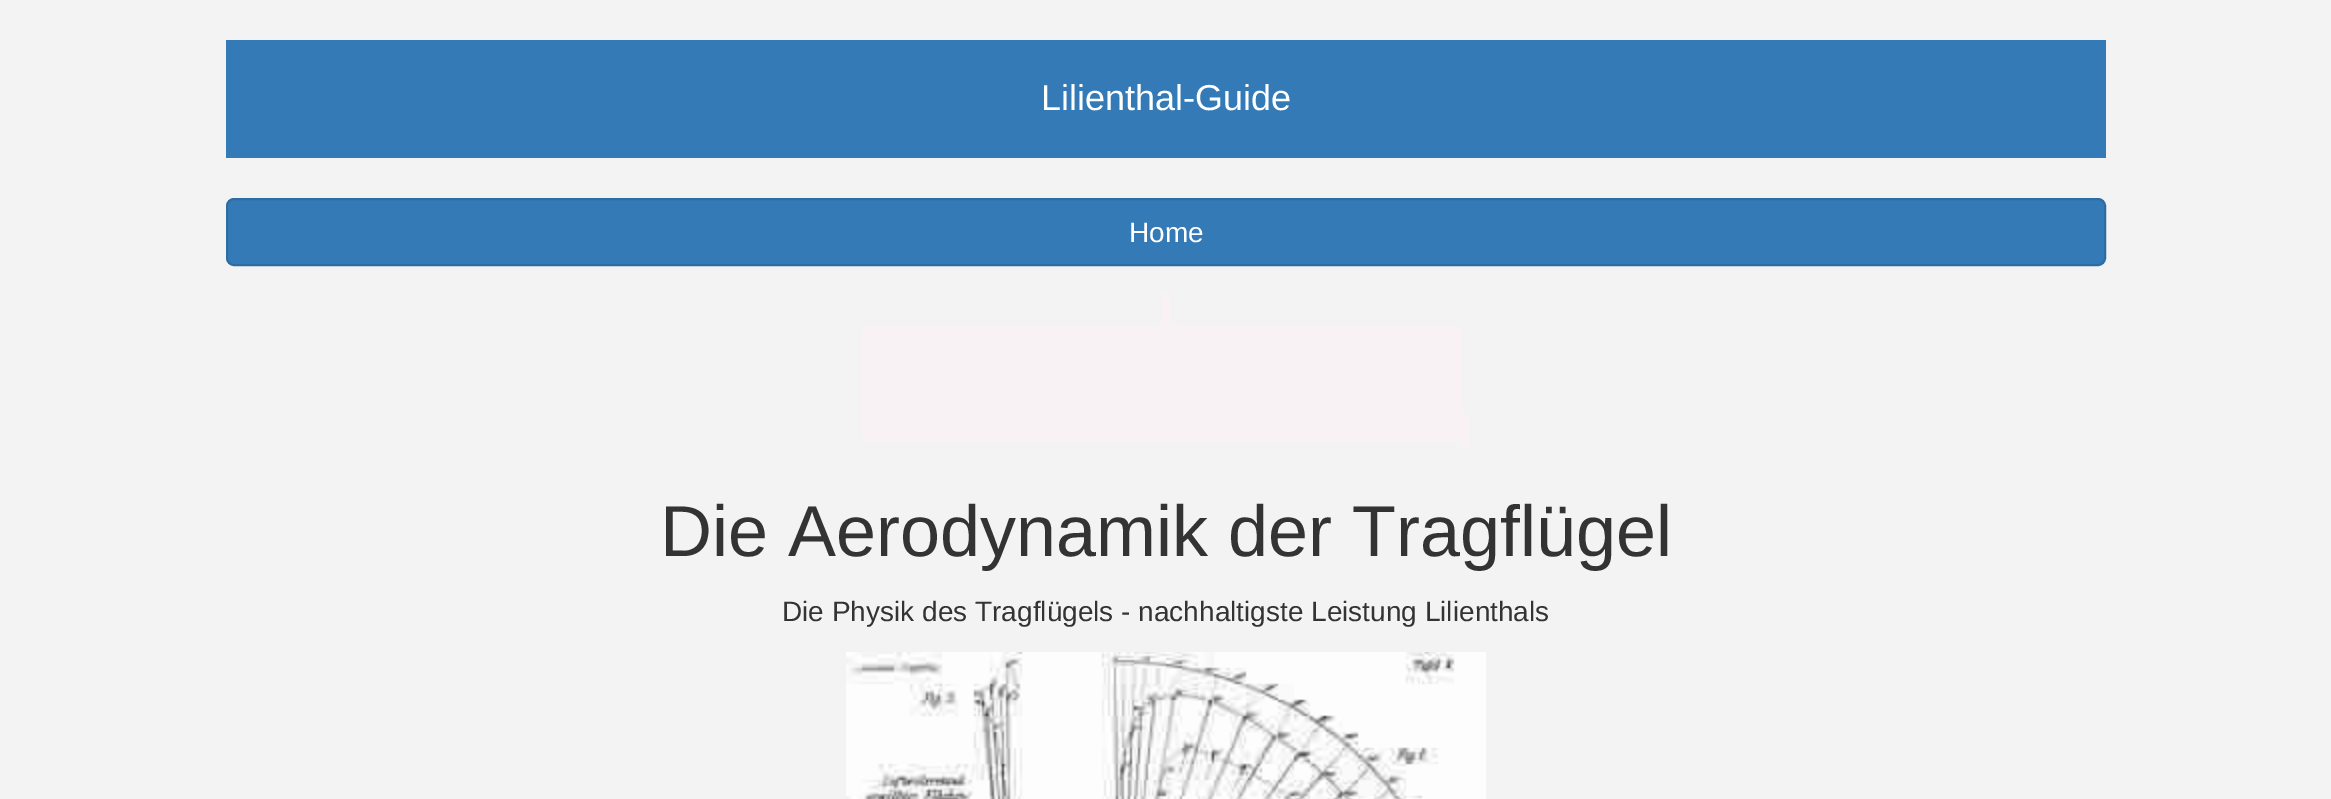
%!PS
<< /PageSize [2331 799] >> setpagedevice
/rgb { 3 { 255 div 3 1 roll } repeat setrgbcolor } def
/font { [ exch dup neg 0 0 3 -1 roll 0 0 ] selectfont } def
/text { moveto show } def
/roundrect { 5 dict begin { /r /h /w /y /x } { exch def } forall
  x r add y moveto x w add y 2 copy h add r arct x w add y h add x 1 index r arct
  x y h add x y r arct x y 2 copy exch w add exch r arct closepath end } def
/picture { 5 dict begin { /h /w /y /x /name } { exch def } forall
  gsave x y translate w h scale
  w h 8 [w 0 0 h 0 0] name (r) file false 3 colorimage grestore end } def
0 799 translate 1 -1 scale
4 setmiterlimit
243 243 243 rgb
0 0 2331 799 rectfill
51 122 183 rgb
226 40 1880 118 rectfill
227 199 1878 66 7 roundrect gsave fill grestore
46 109 164 rgb
2 setlinewidth
stroke
249 242 244 rgb
1166 292 moveto 4 0 rlineto 0 36 rlineto -4 0 rlineto -2 0 -4 -2 -4 -4 rcurveto 0 -28 rlineto 0 -2 2 -4 4 -4 rcurveto closepath fill
862 326 600 116 rectfill
1462 414 moveto 4 0 rlineto 2 0 4 2 4 4 rcurveto 0 28 rlineto 0 2 -2 4 -4 4 rcurveto -4 0 rlineto closepath fill
(img_01.rgb) 846 652 640 147 picture
/LiberationSans-Regular 36 font
255 255 255 rgb
(Lilienthal-Guide) 1041 110 text
/LiberationSans-Regular 28 font
(Home) 1129 242 text
/LiberationSans-Regular 72 font
51 51 51 rgb
(Die Aerodynamik der Tragflügel) 660 556 text
/LiberationSans-Regular 28 font
(Die Physik des Tragflügels - nachhaltigste Leistung Lilienthals) 782 621 text
showpage
